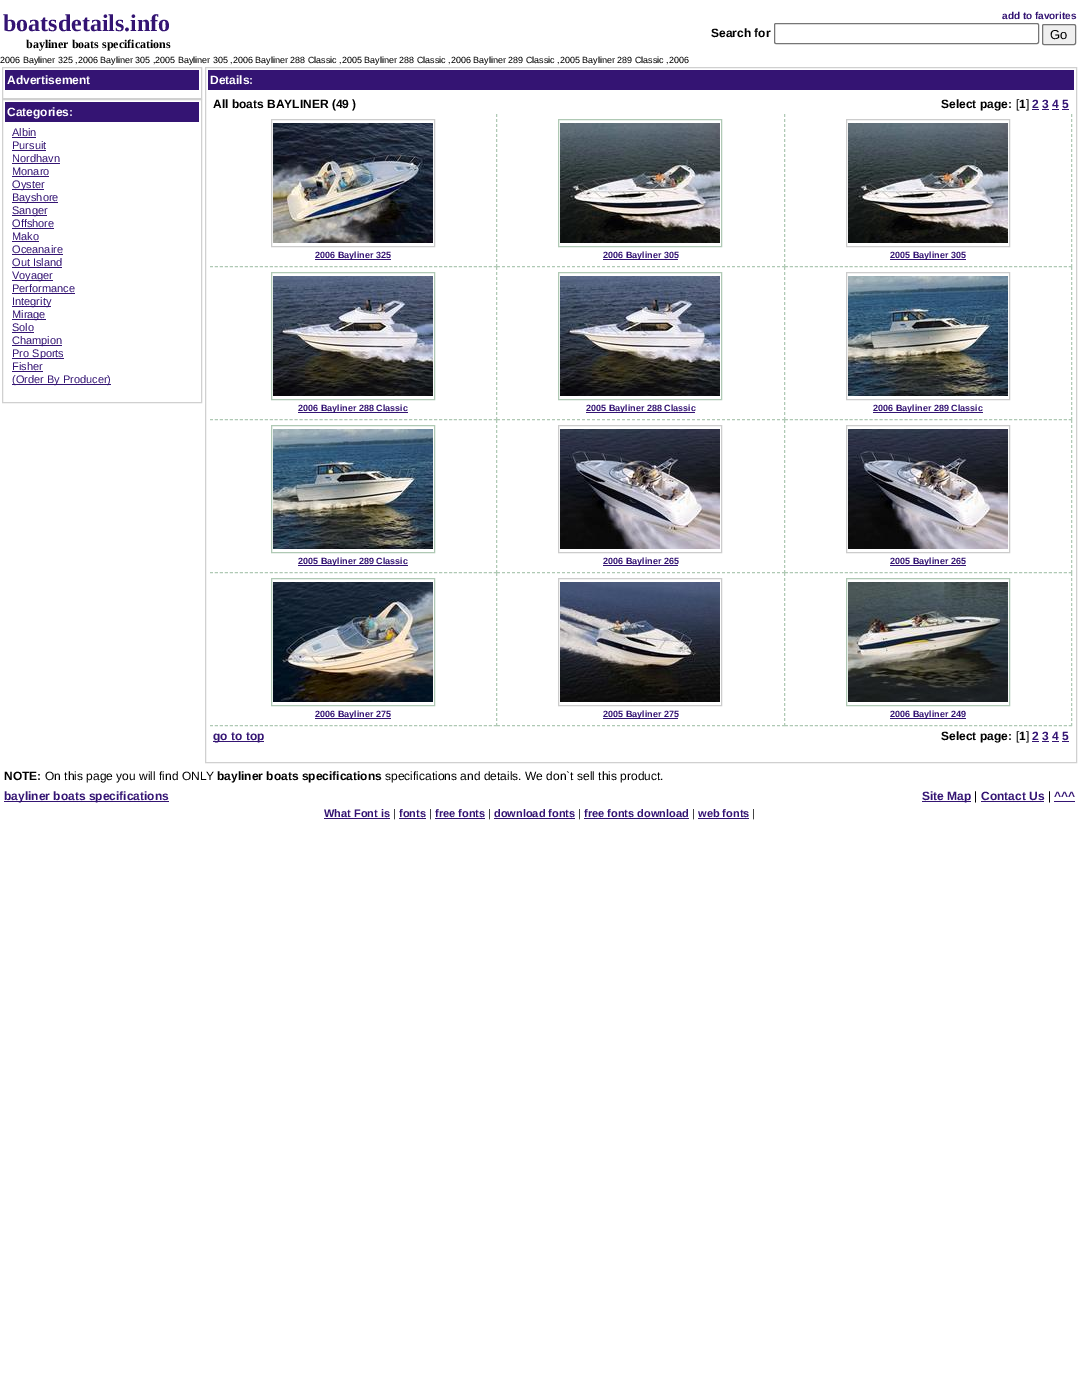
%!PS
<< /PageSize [1079 1389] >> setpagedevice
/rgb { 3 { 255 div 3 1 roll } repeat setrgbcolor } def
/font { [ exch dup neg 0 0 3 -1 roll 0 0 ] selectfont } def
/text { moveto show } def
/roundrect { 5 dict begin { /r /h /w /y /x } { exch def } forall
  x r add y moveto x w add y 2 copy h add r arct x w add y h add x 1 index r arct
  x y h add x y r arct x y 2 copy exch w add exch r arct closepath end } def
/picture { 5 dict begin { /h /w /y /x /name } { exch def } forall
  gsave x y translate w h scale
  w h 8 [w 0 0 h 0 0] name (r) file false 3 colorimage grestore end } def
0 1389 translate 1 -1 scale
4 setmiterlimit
255 255 255 rgb
0 0 1079 1389 rectfill
118 118 118 rgb
774.5 23.5 264 20 1.5 roundrect stroke
239 239 239 rgb
1042.5 24.5 33 20 1.5 roundrect gsave fill grestore
118 118 118 rgb
stroke
208 208 208 rgb
2.5 67.5 199 31 rectstroke
52 20 115 rgb
5 70 194 20 rectfill
208 208 208 rgb
2.5 99.5 199 303 rectstroke
52 20 115 rgb
5 102 194 20 rectfill
12 137 24 1 rectfill
12 150 34 1 rectfill
12 163 48 1 rectfill
12 176 37 1 rectfill
12 189 32 1 rectfill
12 202 46 1 rectfill
12 215 35 1 rectfill
12 228 42 1 rectfill
12 241 27 1 rectfill
12 254 51 1 rectfill
12 267 50 1 rectfill
12 280 41 1 rectfill
12 293 63 1 rectfill
12 306 39 1 rectfill
12 319 34 1 rectfill
12 332 22 1 rectfill
12 345 50 1 rectfill
12 358 52 1 rectfill
12 371 31 1 rectfill
12 384 99 1 rectfill
208 208 208 rgb
205.5 67.5 871 695 rectstroke
52 20 115 rgb
208 70 866 20 rectfill
1032 109 7 1 rectfill
1042 109 7 1 rectfill
1052 109 7 1 rectfill
1062 109 7 1 rectfill
175 201 180 rgb
[3 2] 0 setdash
496.5 114 moveto 0 153 rlineto stroke
[3 1.98] 0 setdash
210 266.5 moveto 287 0 rlineto stroke
204 204 204 rgb
[] 0 setdash
271.5 119.5 163 127 rectstroke
(img_01.rgb) 273 123 160 120 picture
52 20 115 rgb
315 259 76 1 rectfill
175 201 180 rgb
[3 2] 0 setdash
784.5 114 moveto 0 153 rlineto stroke
497 266.5 moveto 288 0 rlineto stroke
[] 0 setdash
558.5 119.5 163 127 rectstroke
(img_02.rgb) 560 123 160 120 picture
52 20 115 rgb
603 259 75 1 rectfill
175 201 180 rgb
[3 2] 0 setdash
1071.5 114 moveto 0 153 rlineto stroke
[3 1.98] 0 setdash
785 266.5 moveto 287 0 rlineto stroke
204 204 204 rgb
[] 0 setdash
846.5 119.5 163 127 rectstroke
(img_02.rgb) 848 123 160 120 picture
52 20 115 rgb
890 259 76 1 rectfill
175 201 180 rgb
[3 2] 0 setdash
496.5 267 moveto 0 153 rlineto stroke
[3 1.98] 0 setdash
210 419.5 moveto 287 0 rlineto stroke
[] 0 setdash
271.5 272.5 163 127 rectstroke
(img_03.rgb) 273 276 160 120 picture
52 20 115 rgb
298 412 110 1 rectfill
175 201 180 rgb
[3 2] 0 setdash
784.5 267 moveto 0 153 rlineto stroke
497 419.5 moveto 288 0 rlineto stroke
[] 0 setdash
558.5 272.5 163 127 rectstroke
(img_03.rgb) 560 276 160 120 picture
52 20 115 rgb
586 412 109 1 rectfill
175 201 180 rgb
[3 2] 0 setdash
1071.5 267 moveto 0 153 rlineto stroke
[3 1.98] 0 setdash
785 419.5 moveto 287 0 rlineto stroke
204 204 204 rgb
[] 0 setdash
846.5 272.5 163 127 rectstroke
(img_04.rgb) 848 276 160 120 picture
52 20 115 rgb
873 412 110 1 rectfill
175 201 180 rgb
[3 2] 0 setdash
496.5 420 moveto 0 153 rlineto stroke
[3 1.98] 0 setdash
210 572.5 moveto 287 0 rlineto stroke
[] 0 setdash
271.5 425.5 163 127 rectstroke
(img_04.rgb) 273 429 160 120 picture
52 20 115 rgb
298 565 110 1 rectfill
175 201 180 rgb
[3 2] 0 setdash
784.5 420 moveto 0 153 rlineto stroke
497 572.5 moveto 288 0 rlineto stroke
204 204 204 rgb
[] 0 setdash
558.5 425.5 163 127 rectstroke
(img_05.rgb) 560 429 160 120 picture
52 20 115 rgb
603 565 75 1 rectfill
175 201 180 rgb
[3 2] 0 setdash
1071.5 420 moveto 0 153 rlineto stroke
[3 1.98] 0 setdash
785 572.5 moveto 287 0 rlineto stroke
204 204 204 rgb
[] 0 setdash
846.5 425.5 163 127 rectstroke
(img_05.rgb) 848 429 160 120 picture
52 20 115 rgb
890 565 76 1 rectfill
175 201 180 rgb
[3 2] 0 setdash
496.5 573 moveto 0 153 rlineto stroke
[3 1.98] 0 setdash
210 725.5 moveto 287 0 rlineto stroke
[] 0 setdash
271.5 578.5 163 127 rectstroke
(img_06.rgb) 273 582 160 120 picture
52 20 115 rgb
315 718 76 1 rectfill
175 201 180 rgb
[3 2] 0 setdash
784.5 573 moveto 0 153 rlineto stroke
497 725.5 moveto 288 0 rlineto stroke
204 204 204 rgb
[] 0 setdash
558.5 578.5 163 127 rectstroke
(img_07.rgb) 560 582 160 120 picture
52 20 115 rgb
603 718 75 1 rectfill
175 201 180 rgb
[3 2] 0 setdash
1071.5 573 moveto 0 153 rlineto stroke
[3 1.98] 0 setdash
785 725.5 moveto 287 0 rlineto stroke
[] 0 setdash
846.5 578.5 163 127 rectstroke
(img_08.rgb) 848 582 160 120 picture
52 20 115 rgb
890 718 76 1 rectfill
213 741 51 1 rectfill
1032 741 7 1 rectfill
1042 741 7 1 rectfill
1052 741 7 1 rectfill
1062 741 7 1 rectfill
4 801 165 1 rectfill
922 801 49 1 rectfill
981 801 63 1 rectfill
1054 801 21 1 rectfill
324 818 66 1 rectfill
399 818 27 1 rectfill
435 818 50 1 rectfill
494 818 81 1 rectfill
584 818 105 1 rectfill
698 818 51 1 rectfill
/LiberationSerif-Bold 24 font
(boatsdetails.info) 3 31 text
/LiberationSerif-Bold 12 font
0 0 0 rgb
(bayliner boats specifications) 26 48 text
/LiberationSans-Bold 10 font
52 20 115 rgb
(add to favorites) 1002 19 text
/LiberationSans-Bold 12 font
0 0 0 rgb
(Search for) 711 37 text
/LiberationSans-Regular 13 font
(Go) 1050 39 text
/LiberationSans-Regular 9 font
(2006 Bayliner 325 ,2006 Bayliner 305 ,2005 Bayliner 305 ,2006 Bayliner 288 Classic ,2005 Bayliner 288 Classic ,2006 Bayliner 289 Classic ,2005 Bayliner 289 Classic ,2006) 0 63 text
/LiberationSans-Bold 12 font
255 255 255 rgb
(Advertisement) 7 84 text
(Categories:) 7 116 text
/LiberationSans-Regular 11 font
52 20 115 rgb
(Albin) 12 136 text
(Pursuit) 12 149 text
(Nordhavn) 12 162 text
(Monaro) 12 175 text
(Oyster) 12 188 text
(Bayshore) 12 201 text
(Sanger) 12 214 text
(Offshore) 12 227 text
(Mako) 12 240 text
(Oceanaire) 12 253 text
(Out Island) 12 266 text
(Voyager) 12 279 text
(Performance) 12 292 text
(Integrity) 12 305 text
(Mirage) 12 318 text
(Solo) 12 331 text
(Champion) 12 344 text
(Pro Sports) 12 357 text
(Fisher) 12 370 text
(\(Order By Producer\)) 12 383 text
/LiberationSans-Bold 12 font
255 255 255 rgb
(Details:) 210 84 text
0 0 0 rgb
(All boats BAYLINER \(49 \)) 213 108 text
(Select page:) 941 108 text
/LiberationSans-Regular 12 font
([) 1016 108 text
/LiberationSans-Bold 12 font
(1) 1019 108 text
/LiberationSans-Regular 12 font
(]) 1026 108 text
/LiberationSans-Bold 12 font
52 20 115 rgb
(2 3 4 5) 1032 108 text
/LiberationSans-Bold 9 font
(2006 Bayliner 325) 315 258 text
(2006 Bayliner 305) 603 258 text
(2005 Bayliner 305) 890 258 text
(2006 Bayliner 288 Classic) 298 411 text
(2005 Bayliner 288 Classic) 586 411 text
(2006 Bayliner 289 Classic) 873 411 text
(2005 Bayliner 289 Classic) 298 564 text
(2006 Bayliner 265) 603 564 text
(2005 Bayliner 265) 890 564 text
(2006 Bayliner 275) 315 717 text
(2005 Bayliner 275) 603 717 text
(2006 Bayliner 249) 890 717 text
/LiberationSans-Bold 12 font
(go to top) 213 740 text
0 0 0 rgb
(Select page:) 941 740 text
/LiberationSans-Regular 12 font
([) 1016 740 text
/LiberationSans-Bold 12 font
(1) 1019 740 text
/LiberationSans-Regular 12 font
(]) 1026 740 text
/LiberationSans-Bold 12 font
52 20 115 rgb
(2 3 4 5) 1032 740 text
0 0 0 rgb
(NOTE:) 4 780 text
/LiberationSans-Regular 12 font
(On this page you will find ONLY) 45 780 text
/LiberationSans-Bold 12 font
(bayliner boats specifications) 217 780 text
/LiberationSans-Regular 12 font
(specifications and details. We don`t sell this product.) 385 780 text
/LiberationSans-Bold 12 font
52 20 115 rgb
(bayliner boats specifications) 4 800 text
(Site Map) 922 800 text
/LiberationSans-Regular 12 font
0 0 0 rgb
(|) 974 800 text
/LiberationSans-Bold 12 font
52 20 115 rgb
(Contact Us) 981 800 text
/LiberationSans-Regular 12 font
0 0 0 rgb
(|) 1048 800 text
/LiberationSans-Bold 12 font
52 20 115 rgb
(^^^) 1054 800 text
/LiberationSans-Bold 11 font
(What Font is) 324 817 text
/LiberationSans-Regular 11 font
0 0 0 rgb
(|) 393 817 text
/LiberationSans-Bold 11 font
52 20 115 rgb
(fonts) 399 817 text
/LiberationSans-Regular 11 font
0 0 0 rgb
(|) 429 817 text
/LiberationSans-Bold 11 font
52 20 115 rgb
(free fonts) 435 817 text
/LiberationSans-Regular 11 font
0 0 0 rgb
(|) 488 817 text
/LiberationSans-Bold 11 font
52 20 115 rgb
(download fonts) 494 817 text
/LiberationSans-Regular 11 font
0 0 0 rgb
(|) 578 817 text
/LiberationSans-Bold 11 font
52 20 115 rgb
(free fonts download) 584 817 text
/LiberationSans-Regular 11 font
0 0 0 rgb
(|) 692 817 text
/LiberationSans-Bold 11 font
52 20 115 rgb
(web fonts) 698 817 text
/LiberationSans-Regular 11 font
0 0 0 rgb
(|) 752 817 text
showpage
